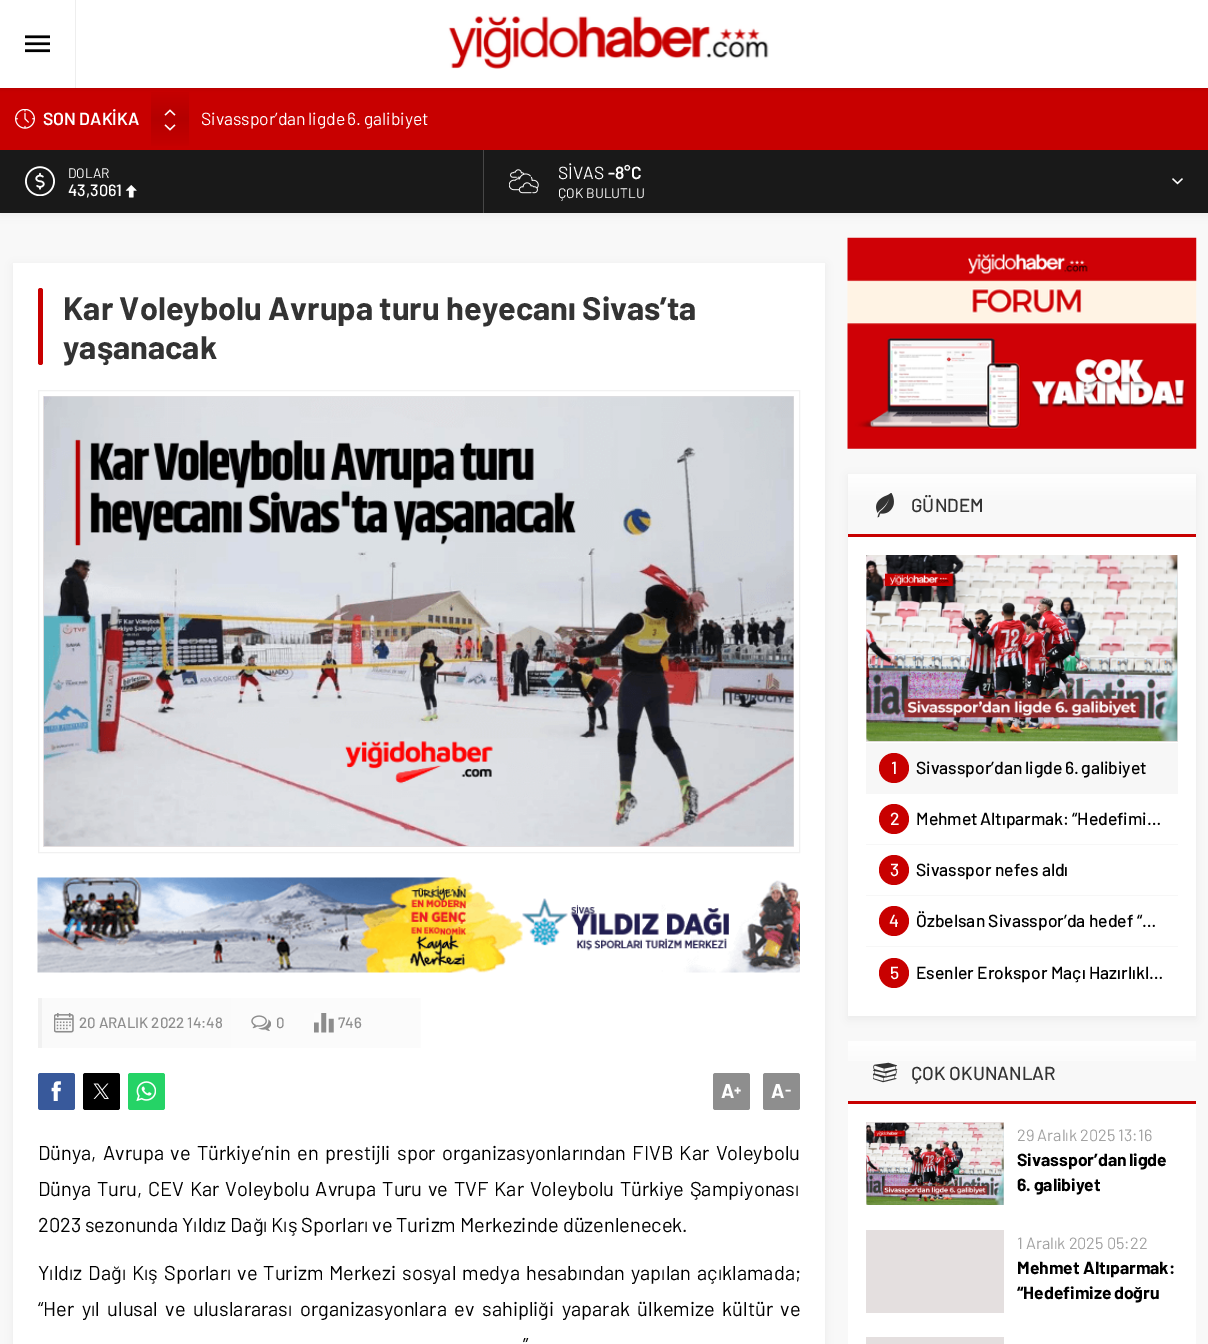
%!PS
<< /PageSize [1208 1344] /PageUsesTransparency true >> setpagedevice
/rgb { 3 { 255 div 3 1 roll } repeat setrgbcolor } def
/font { [ exch dup neg 0 0 3 -1 roll 0 0 ] selectfont } def
/text { moveto show } def
/alpha { dup .setfillconstantalpha .setstrokeconstantalpha } def
/circle { newpath 0 360 arc closepath } def
/roundrect { 5 dict begin { /r /h /w /y /x } { exch def } forall
  x r add y moveto x w add y 2 copy h add r arct x w add y h add x 1 index r arct
  x y h add x y r arct x y 2 copy exch w add exch r arct closepath end } def
/shadow { 12 dict begin { /a /b /q /h /w /y /x } { exch def } forall gsave /was 0 def
  9 -2 -9 { dup b mul 4 div /e exch def 1 sub .425 mul 2.718 exch exp 1 add a .99 .min exch div /now exch def
    1 1 now sub 1 was sub div sub alpha /was now def
    w h .min e 2 mul add 0 gt { x e sub y e sub w e 2 mul add h e 2 mul add
      q e add b .6 mul add w h .min 2 div e add .min 0 .max roundrect fill } if } for grestore end } def
/picture { 5 dict begin { /h /w /y /x /name } { exch def } forall
  gsave x y translate w h scale
  w h 8 [w 0 0 h 0 0] name (r) file false 3 colorimage grestore end } def
0 .pushpdf14devicefilter
0 1344 translate 1 -1 scale
4 setmiterlimit
248 248 248 rgb
0 0 1208 1344 rectfill
0 0 0 rgb
0 90 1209 125 0 5 0.05 shadow
200 0 0 rgb
0 88 1208 62 rectfill
gsave 151 92 moveto 38 0 rlineto 0 54 rlineto -38 0 rlineto closepath clip newpath
<< /ShadingType 2 /ColorSpace /DeviceRGB /Coords [170 88 170 150] /Extend [true true] /Function << /FunctionType 3 /Domain [0 1] /Functions [<< /FunctionType 2 /Domain [0 1] /C0 [0.784 0 0] /C1 [0.706 0 0] /N 1 >> << /FunctionType 2 /Domain [0 1] /C0 [0.706 0 0] /C1 [0.784 0 0] /N 1 >>] /Bounds [0.5] /Encode [0 1 0 1] >> >> shfill grestore
0 0 0 rgb
0 0 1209 88 0 2 0.15 shadow
255 255 255 rgb
0 0 1208 88 rectfill
238 238 238 rgb
75 0 1 88 rectfill
(img_01.rgb) 25 35 25 18 picture
(img_02.rgb) 448 16 321 53 picture
(img_03.rgb) 15 109 20 20 picture
(img_04.rgb) 164 109 12 7 picture
(img_05.rgb) 164 124 12 7 picture
25 25 25 rgb
0 150 483 63 rectfill
71 71 71 rgb
483 150 1 63 rectfill
(img_06.rgb) 25 166 30 30 picture
(img_07.rgb) 125 185 12 13 picture
25 25 25 rgb
484 150 724 63 rectfill
(img_08.rgb) 509 169 30 25 picture
(img_09.rgb) 1172 178 11 7 picture
0 0 0 rgb
13 265 812 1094 0 5 0.05 shadow
255 255 255 rgb
13 263 812 1081 rectfill
200 0 0 rgb
38 288 5 77 2.5 roundrect fill
241 241 241 rgb
38.5 390.5 761 462 rectstroke
228 223 223 rgb
43 396 751 451 rectfill
(img_10.rgb) 43 396 751 451 picture
(img_11.rgb) 37 877 763 96 picture
gsave 42 998 moveto 379 0 rlineto 0 50 rlineto -379 0 rlineto closepath clip newpath
<< /ShadingType 2 /ColorSpace /DeviceRGB /Coords [41 1023 800 1023] /Extend [true true] /Function << /FunctionType 2 /Domain [0 1] /C0 [0.98 0.98 0.98] /C1 [1 1 1] /N 1 >> >> shfill grestore
241 241 241 rgb
38 998 4 50 rectfill
(img_12.rgb) 54 1013 20 20 picture
(img_13.rgb) 251 1015 20 16 picture
(img_14.rgb) 314 1013 20 20 picture
56 89 155 rgb
38 1073 37 37 2.5 roundrect fill
(img_15.rgb) 51 1081 10 20 picture
0 0 0 rgb
83 1073 37 37 2.5 roundrect fill
(img_16.rgb) 93 1083 16 16 picture
37 211 102 rgb
128 1073 37 37 2.5 roundrect fill
(img_17.rgb) 136 1081 20 20 picture
142 142 142 rgb
713 1073 37 37 2.5 roundrect fill
763 1073 37 37 2.5 roundrect fill
(img_18.rgb) 847 237 350 212 picture
0 0 0 rgb
848 476 348 543 0 5 0.05 shadow
255 255 255 rgb
848 537 348 479 rectfill
gsave 848 474 moveto 348 0 rlineto 0 60 rlineto -348 0 rlineto closepath clip newpath
<< /ShadingType 2 /ColorSpace /DeviceRGB /Coords [1022 474 1022 536] /Extend [true true] /Function << /FunctionType 3 /Domain [0 1] /Functions [<< /FunctionType 2 /Domain [0 1] /C0 [1 1 1] /C1 [0.973 0.973 0.973] /N 1 >> << /FunctionType 2 /Domain [0 1] /C0 [0.973 0.973 0.973] /C1 [0.973 0.973 0.973] /N 1 >>] /Bounds [0.5] /Encode [0 1 0 1] >> >> shfill grestore
(img_19.rgb) 876 493 18 25 picture
200 0 0 rgb
848 534 348 3 rectfill
228 223 223 rgb
866 555 312 187 rectfill
(img_20.rgb) 866 555 312 187 picture
247 247 247 rgb
866 743 312 51 rectfill
200 0 0 rgb
894 768 15 circle fill
894 819 15 circle fill
247 247 247 rgb
866 844 312 1 rectfill
200 0 0 rgb
894 870 15 circle fill
247 247 247 rgb
866 895 312 1 rectfill
200 0 0 rgb
894 921 15 circle fill
247 247 247 rgb
866 946 312 1 rectfill
200 0 0 rgb
894 973 15 circle fill
255 255 255 rgb
848 1104 348 240 rectfill
gsave 848 1041 moveto 348 0 rlineto 0 20 rlineto -348 0 rlineto closepath clip newpath
<< /ShadingType 2 /ColorSpace /DeviceRGB /Coords [1022 1041 1022 1104] /Extend [true true] /Function << /FunctionType 3 /Domain [0 1] /Functions [<< /FunctionType 2 /Domain [0 1] /C0 [1 1 1] /C1 [0.973 0.973 0.973] /N 1 >> << /FunctionType 2 /Domain [0 1] /C0 [0.973 0.973 0.973] /C1 [0.973 0.973 0.973] /N 1 >>] /Bounds [0.5] /Encode [0 1 0 1] >> >> shfill grestore
(img_21.rgb) 873 1062 25 21 picture
200 0 0 rgb
848 1101 348 3 rectfill
228 223 223 rgb
866 1122 138 83 rectfill
(img_22.rgb) 866 1122 138 83 picture
866 1230 138 83 rectfill
866 1337 138 7 rectfill
/Barlow-SemiBold 17.5 font
255 255 255 rgb
(SON DAKİKA) 43 125 text
/Barlow-Regular 17.5 font
201 125 moveto -1 0 32 (Sivasspor’dan ligde 6. galibiyet) widthshow
/Barlow-Regular 13.75 font
(DOLAR) 68 178 text
/Barlow-Medium 16.25 font
(43,3061) 68 196 text
/Barlow-Regular 17.5 font
(SİVAS) 558 179 text
/Barlow-SemiBold 17.5 font
(-8°C) 608 179 text
/Barlow-Regular 13.75 font
(ÇOK BULUTLU) 558 198 text
/Barlow-Bold 32.5 font
51 51 51 rgb
(Kar Voleybolu Avrupa turu heyecanı Sivas’ta) 63 320 text
(yaşanacak) 63 359 text
/Barlow-Medium 15 font
141 141 141 rgb
(20 ARALIK 2022 14:48) 79 1028 text
(0) 276 1028 text
(746) 338 1028 text
/Barlow-Bold 20 font
255 255 255 rgb
(A) 721 1098 text
/Barlow-Bold 15 font
(+) 734 1095 text
/Barlow-Bold 20 font
(A) 771 1098 text
/Barlow-Bold 15 font
(-) 785 1095 text
/Barlow-Regular 20 font
0 0 0 rgb
38 1160 moveto 2.4 0 32 (Dünya, Avrupa ve Türkiye’nin en prestijli spor organizasyonlarından FIVB Kar Voleybolu) widthshow
38 1196 moveto 1.75 0 32 (Dünya Turu, CEV Kar Voleybolu Avrupa Turu ve TVF Kar Voleybolu Türkiye Şampiyonası) widthshow
38 1232 moveto -0.25 0 32 (2023 sezonunda Yıldız Dağı Kış Sporları ve Turizm Merkezinde düzenlenecek.) widthshow
38 1280 moveto 2 0 32 (Yıldız Dağı Kış Sporları ve Turizm Merkezi sosyal medya hesabından yapılan açıklamada;) widthshow
38 1316 moveto 3.5 0 32 (“Her yıl ulusal ve uluslararası organizasyonlara ev sahipliği yaparak ülkemize kültür ve) widthshow
523 1352 moveto -1 0 32 (”) widthshow
/Barlow-Medium 18.75 font
51 51 51 rgb
(GÜNDEM) 911 512 text
/Barlow-Medium 17.5 font
255 255 255 rgb
(1) 891 774 text
0 0 0 rgb
916 774 moveto -1 0 32 (Sivasspor’dan ligde 6. galibiyet) widthshow
255 255 255 rgb
(2) 890 825 text
0 0 0 rgb
916 825 moveto -1 0 32 (Mehmet Altıparmak: “Hedefimi…) widthshow
255 255 255 rgb
(3) 890 876 text
0 0 0 rgb
(Sivasspor nefes aldı) 916 876 text
255 255 255 rgb
(4) 889 927 text
0 0 0 rgb
(Özbelsan Sivasspor’da hedef “…) 916 927 text
255 255 255 rgb
(5) 890 979 text
0 0 0 rgb
(Esenler Erokspor Maçı Hazırlıkl…) 916 979 text
/Barlow-Medium 18.75 font
51 51 51 rgb
(ÇOK OKUNANLAR) 911 1080 text
/Barlow-Regular 16.25 font
162 162 162 rgb
(29 Aralık 2025 13:16) 1017 1141 text
/Barlow-Bold 17.5 font
0 0 0 rgb
1017 1166 moveto -1 0 32 (Sivasspor’dan ligde) widthshow
1017 1191 moveto -1 0 32 (6. galibiyet) widthshow
/Barlow-Regular 16.25 font
162 162 162 rgb
(1 Aralık 2025 05:22) 1017 1249 text
/Barlow-Bold 17.5 font
0 0 0 rgb
(Mehmet Altıparmak:) 1017 1274 text
1017 1299 moveto -1 0 32 (“Hedefimize doğru) widthshow
.poppdf14devicefilter showpage
